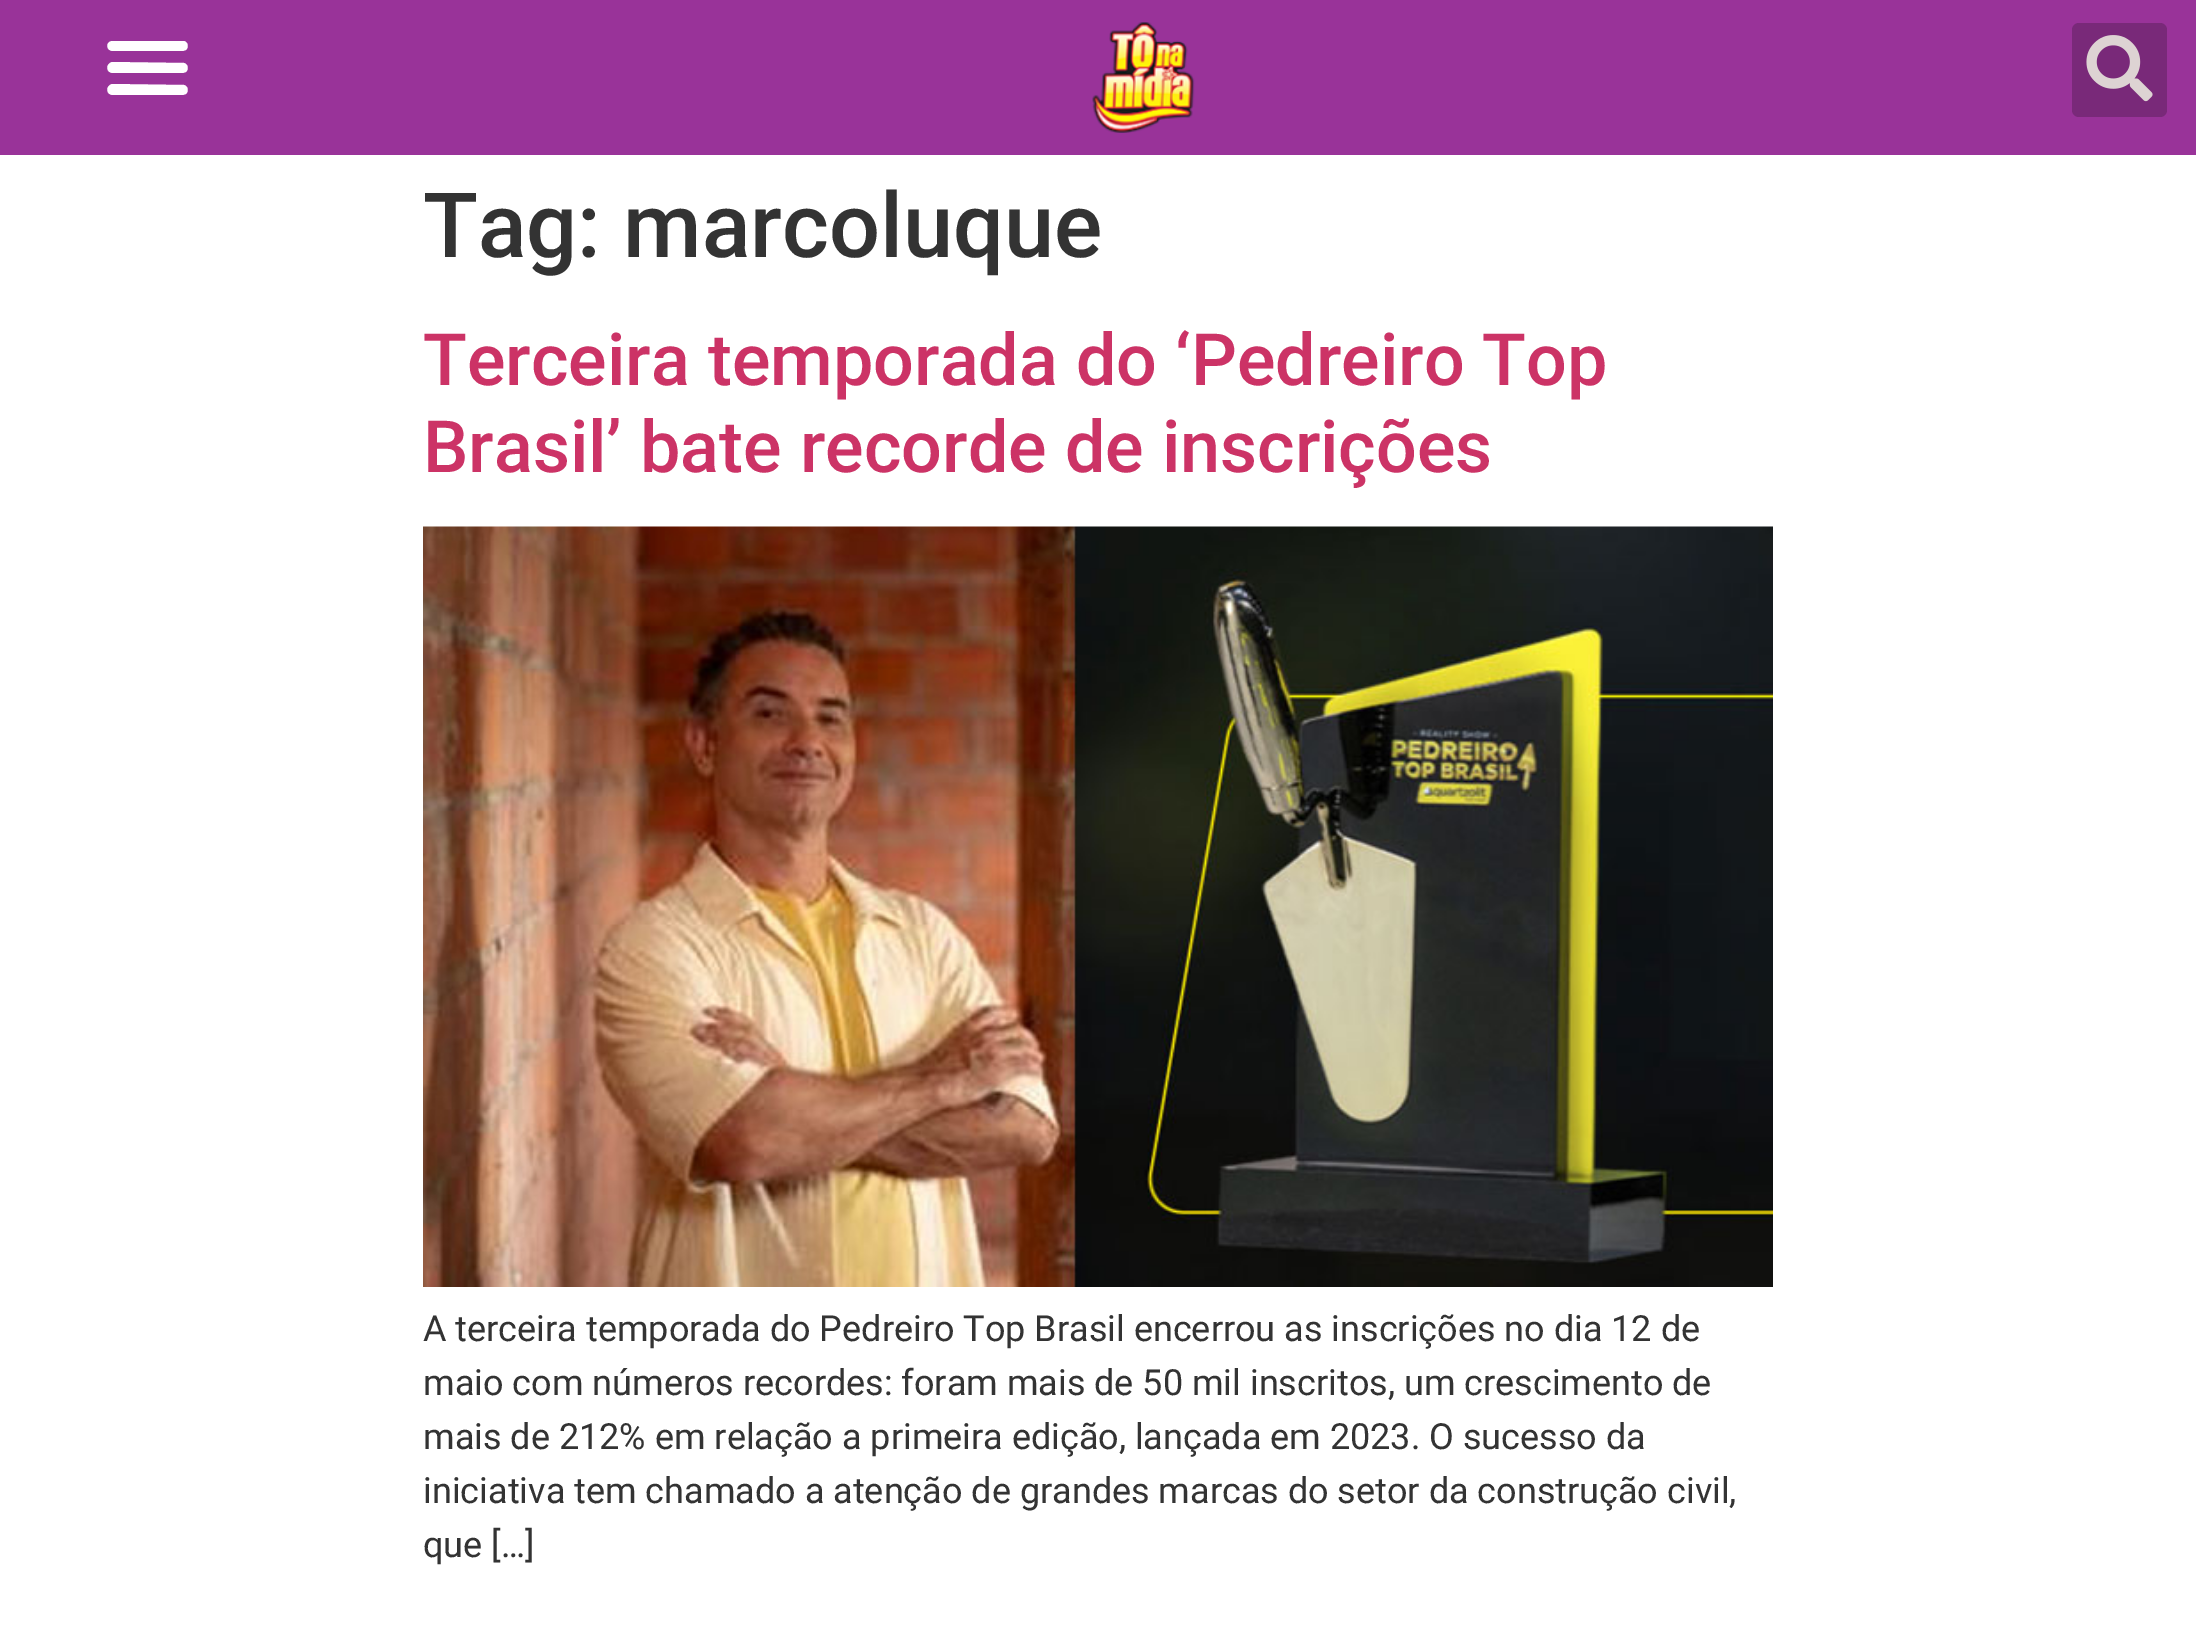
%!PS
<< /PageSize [2196 1638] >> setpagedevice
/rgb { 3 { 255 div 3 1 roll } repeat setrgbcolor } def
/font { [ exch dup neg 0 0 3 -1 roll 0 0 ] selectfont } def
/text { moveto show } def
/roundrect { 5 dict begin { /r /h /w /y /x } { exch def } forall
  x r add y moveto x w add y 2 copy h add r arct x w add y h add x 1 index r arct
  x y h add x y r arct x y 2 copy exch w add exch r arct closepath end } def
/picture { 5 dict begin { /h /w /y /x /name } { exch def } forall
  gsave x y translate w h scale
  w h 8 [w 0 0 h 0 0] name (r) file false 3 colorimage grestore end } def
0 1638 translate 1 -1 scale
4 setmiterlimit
255 255 255 rgb
0 0 2196 1638 rectfill
153 51 153 rgb
0 0 2196 155 rectfill
255 255 255 rgb
113 51 moveto 70 0 rlineto 3 -1 rlineto 3 -3 2 -8 -2 -9 rcurveto -72 0 rlineto -7 1 -6 10 1 10 rcurveto closepath 113 73 moveto 70 0 rlineto 3 -1 rlineto 3 -3 2 -8 -2 -9 rcurveto -72 -1 rlineto -7 2 -6 11 1 11 rcurveto closepath 113 95 moveto 70 0 rlineto 3 -1 rlineto 3 -3 2 -8 -2 -9 rcurveto -72 -1 rlineto -7 2 -6 11 1 11 rcurveto closepath fill
(img_01.rgb) 1092 22 103 111 picture
121 41 121 rgb
2072 23 95 94 7 roundrect fill
(img_02.rgb) 2086 35 67 67 picture
(img_03.rgb) 423 526 1350 761 picture
/Roboto-Medium 90 font
51 51 51 rgb
(Tag: marcoluque) 423 257 text
/Roboto-Medium 72 font
204 51 102 rgb
(Terceira temporada do ‘Pedreiro Top) 423 385 text
(Brasil’ bate recorde de inscrições) 423 472 text
/Roboto-Regular 36 font
51 51 51 rgb
(A terceira temporada do Pedreiro Top Brasil encerrou as inscrições no dia 12 de) 423 1341 text
(maio com números recordes: foram mais de 50 mil inscritos, um crescimento de) 423 1395 text
(mais de 212% em relação a primeira edição, lançada em 2023. O sucesso da) 423 1449 text
(iniciativa tem chamado a atenção de grandes marcas do setor da construção civil,) 423 1503 text
(que […]) 423 1557 text
showpage
